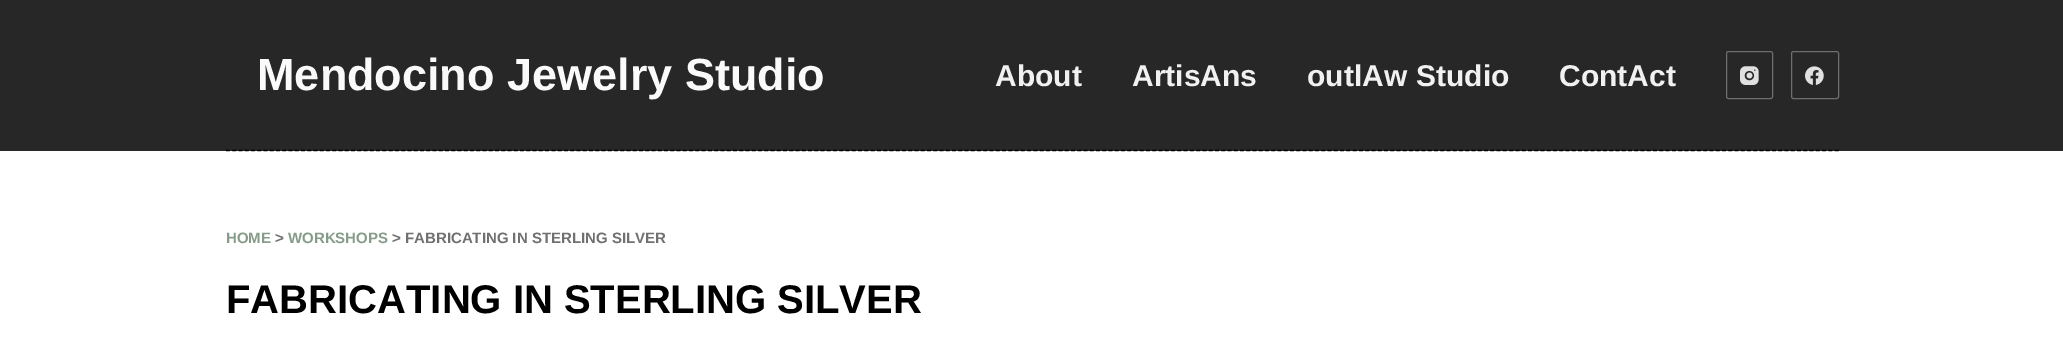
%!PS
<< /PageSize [2063 363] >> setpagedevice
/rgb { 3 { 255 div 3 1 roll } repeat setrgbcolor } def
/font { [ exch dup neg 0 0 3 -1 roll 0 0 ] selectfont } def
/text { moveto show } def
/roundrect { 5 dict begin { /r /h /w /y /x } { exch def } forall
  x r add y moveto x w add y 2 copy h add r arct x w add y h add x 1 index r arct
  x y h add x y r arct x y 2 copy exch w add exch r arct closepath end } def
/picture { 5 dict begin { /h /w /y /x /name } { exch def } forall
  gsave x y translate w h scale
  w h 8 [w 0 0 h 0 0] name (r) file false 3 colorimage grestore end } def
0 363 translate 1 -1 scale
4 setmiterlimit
255 255 255 rgb
0 0 2063 363 rectfill
39 39 39 rgb
0 0 2063 151 rectfill
0 0 0 rgb
1.2 setlinewidth
[3.75 2.51] 0 setdash
226 150.5 moveto 1613 0 rlineto stroke
109 110 112 rgb
1 setlinewidth
[] 0 setdash
1726.5 51.5 46 47 2 roundrect stroke
(img_01.rgb) 1740 66 19 19 picture
1791.5 51.5 47 47 2 roundrect stroke
(img_02.rgb) 1805 66 19 19 picture
/LiberationSans-Bold 45 font
250 250 250 rgb
(Mendocino Jewelry Studio) 257 90 text
/LiberationSans-Bold 30 font
241 241 241 rgb
(About) 995 86 text
(ArtisAns) 1132 86 text
(outlAw) 1307 86 text
(Studio) 1416 86 text
(ContAct) 1559 86 text
/LiberationSans-Bold 15 font
134 156 136 rgb
(HOME) 226 243 text
112 112 112 rgb
(>) 275 243 text
134 156 136 rgb
(WORKSHOPS) 288 243 text
112 112 112 rgb
(> FABRICATING IN STERLING SILVER) 392 243 text
/LiberationSans-Bold 40 font
0 0 0 rgb
(FABRICATING IN STERLING SILVER) 226 313 text
showpage
